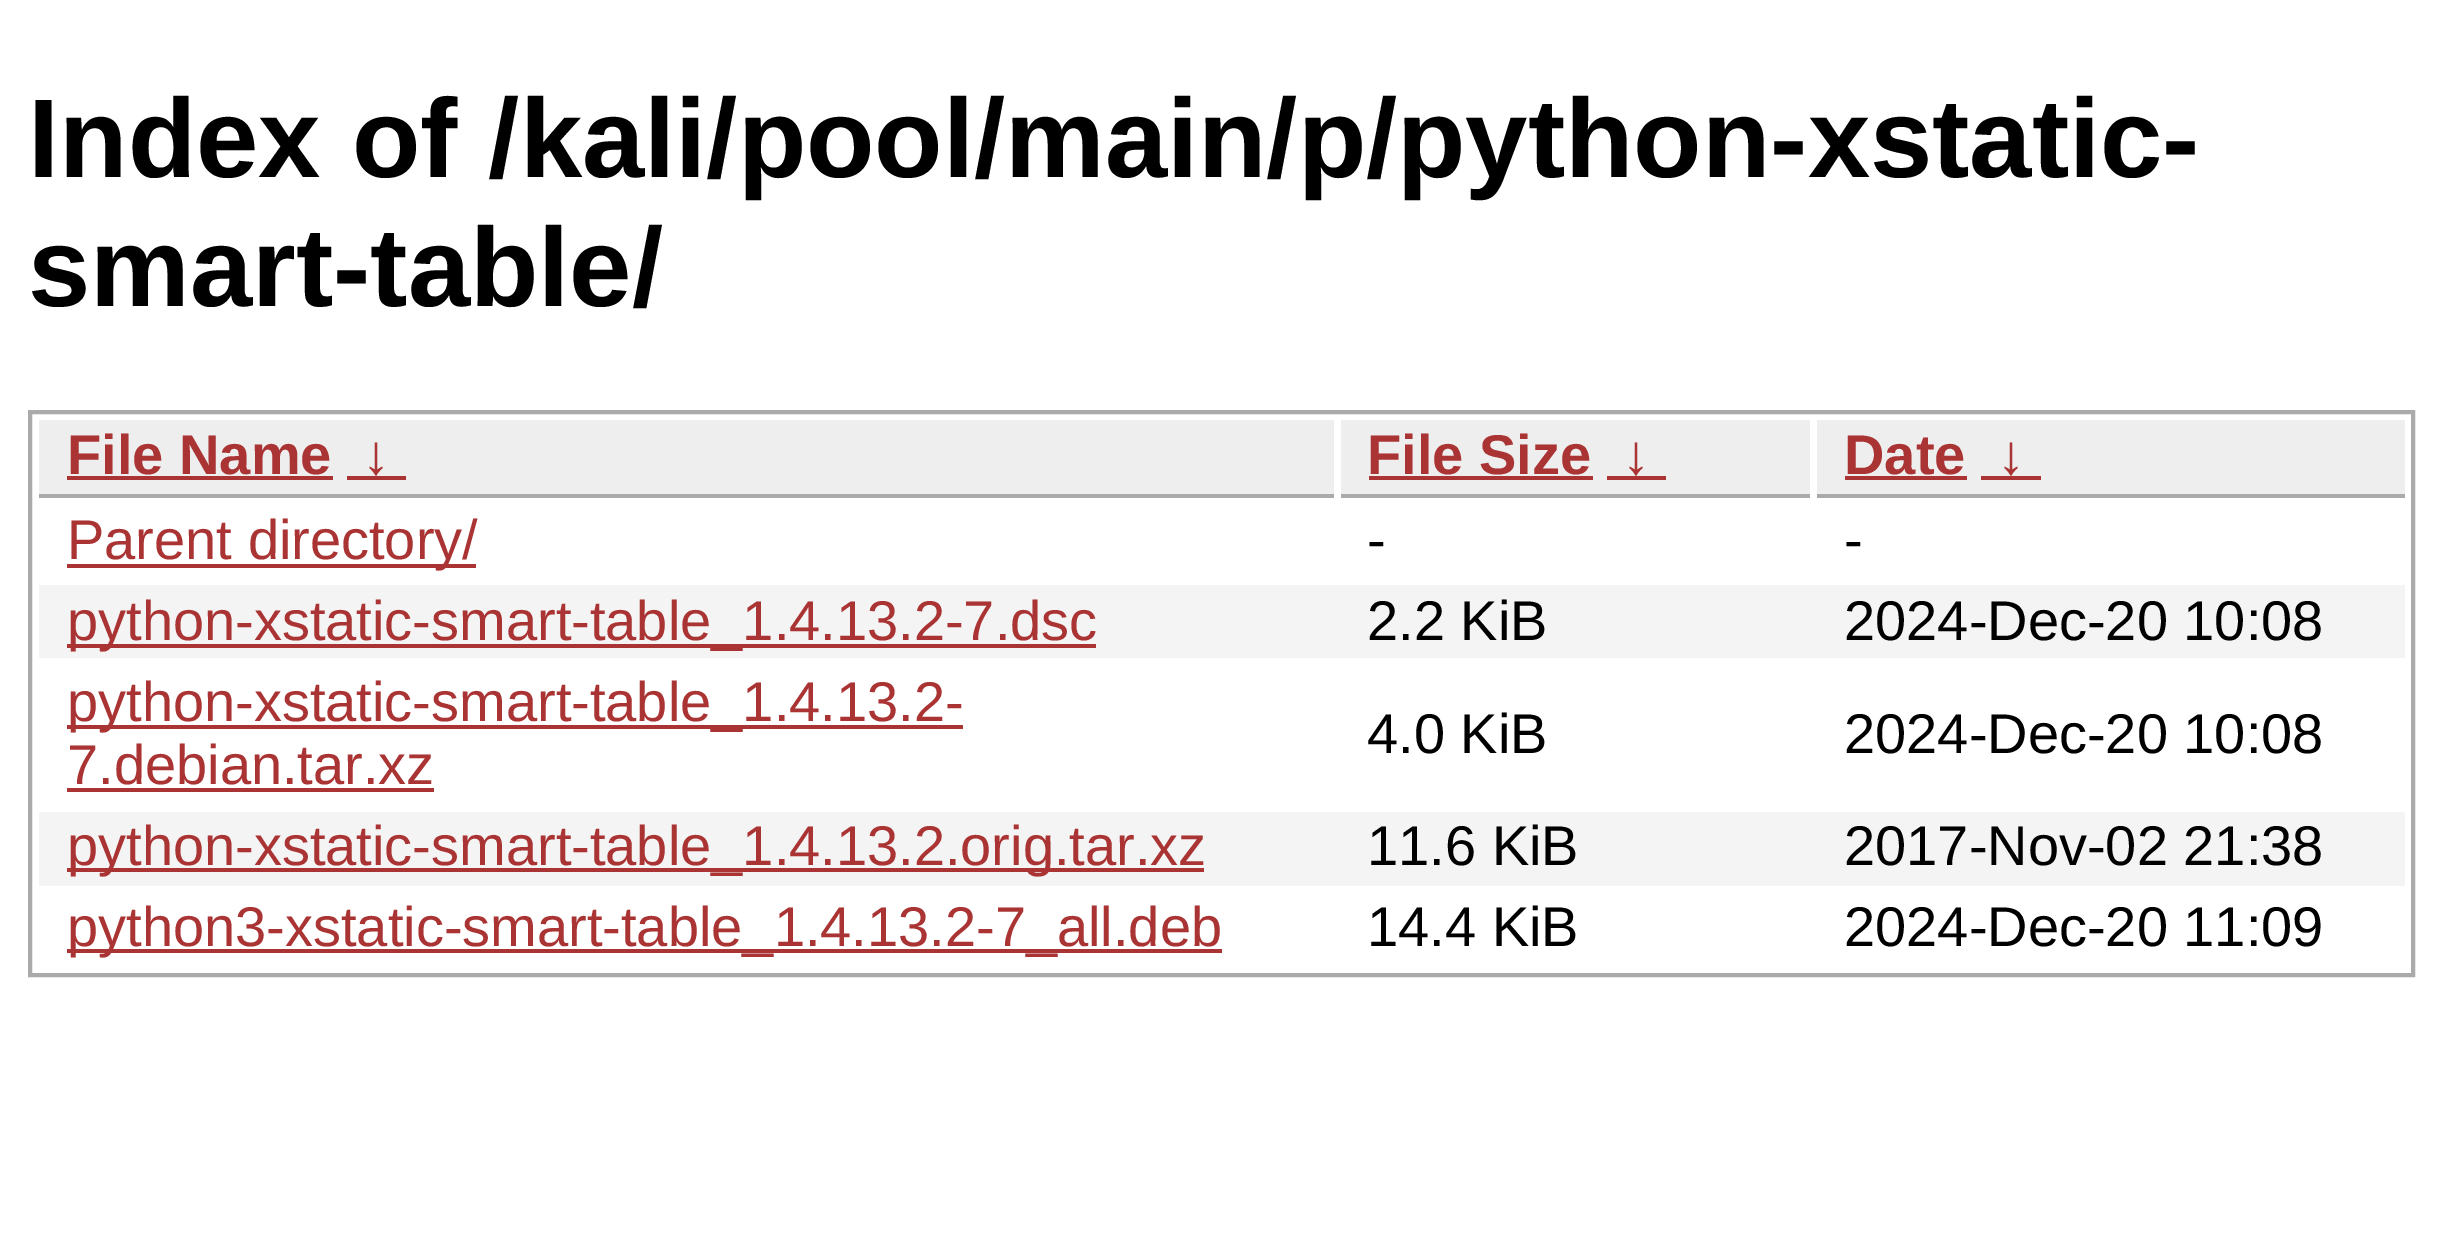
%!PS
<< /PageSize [2441 1259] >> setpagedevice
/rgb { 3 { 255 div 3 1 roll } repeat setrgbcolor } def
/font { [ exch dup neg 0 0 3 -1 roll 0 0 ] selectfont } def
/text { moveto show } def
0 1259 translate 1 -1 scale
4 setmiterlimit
255 255 255 rgb
0 0 2441 1259 rectfill
170 170 170 rgb
4 setlinewidth
30 412 2383 563 rectstroke
238 238 238 rgb
39 420 1295 74 rectfill
170 170 170 rgb
39 494 1295 4 rectfill
170 51 51 rgb
67 476 266 4 rectfill
347 476 59 4 rectfill
238 238 238 rgb
1341 420 469 74 rectfill
170 170 170 rgb
1341 494 469 4 rectfill
170 51 51 rgb
1369 476 224 4 rectfill
1607 476 59 4 rectfill
238 238 238 rgb
1817 420 588 74 rectfill
170 170 170 rgb
1817 494 588 4 rectfill
170 51 51 rgb
1845 476 122 4 rectfill
1981 476 60 4 rectfill
67 564 409 4 rectfill
244 244 244 rgb
39 585 2366 73 rectfill
170 51 51 rgb
67 644 1029 4 rectfill
67 725 896 4 rectfill
67 788 367 4 rectfill
244 244 244 rgb
39 812 2366 74 rectfill
170 51 51 rgb
67 868 1137 4 rectfill
67 949 1155 4 rectfill
/LiberationSans-Bold 112 font
0 0 0 rgb
(Index of /kali/pool/main/p/python-xstatic-) 28 177 text
(smart-table/) 28 306 text
/LiberationSans-Bold 56 font
170 51 51 rgb
(File Name) 67 474 text
(↓) 362 474 text
(File Size) 1367 474 text
(↓) 1622 474 text
(Date) 1844 474 text
(↓) 1997 474 text
/LiberationSans-Regular 56 font
(Parent directory/) 67 559 text
0 0 0 rgb
(-) 1367 559 text
(-) 1844 559 text
170 51 51 rgb
(python-xstatic-smart-table_1.4.13.2-7.dsc) 67 640 text
0 0 0 rgb
(2.2 KiB) 1367 640 text
(2024-Dec-20 10:08) 1844 640 text
170 51 51 rgb
(python-xstatic-smart-table_1.4.13.2-) 67 721 text
(7.debian.tar.xz) 67 784 text
0 0 0 rgb
(4.0 KiB) 1367 753 text
(2024-Dec-20 10:08) 1844 753 text
170 51 51 rgb
(python-xstatic-smart-table_1.4.13.2.orig.tar.xz) 67 865 text
0 0 0 rgb
(11.6 KiB) 1367 865 text
(2017-Nov-02 21:38) 1844 865 text
170 51 51 rgb
(python3-xstatic-smart-table_1.4.13.2-7_all.deb) 67 946 text
0 0 0 rgb
(14.4 KiB) 1367 946 text
(2024-Dec-20 11:09) 1844 946 text
showpage
